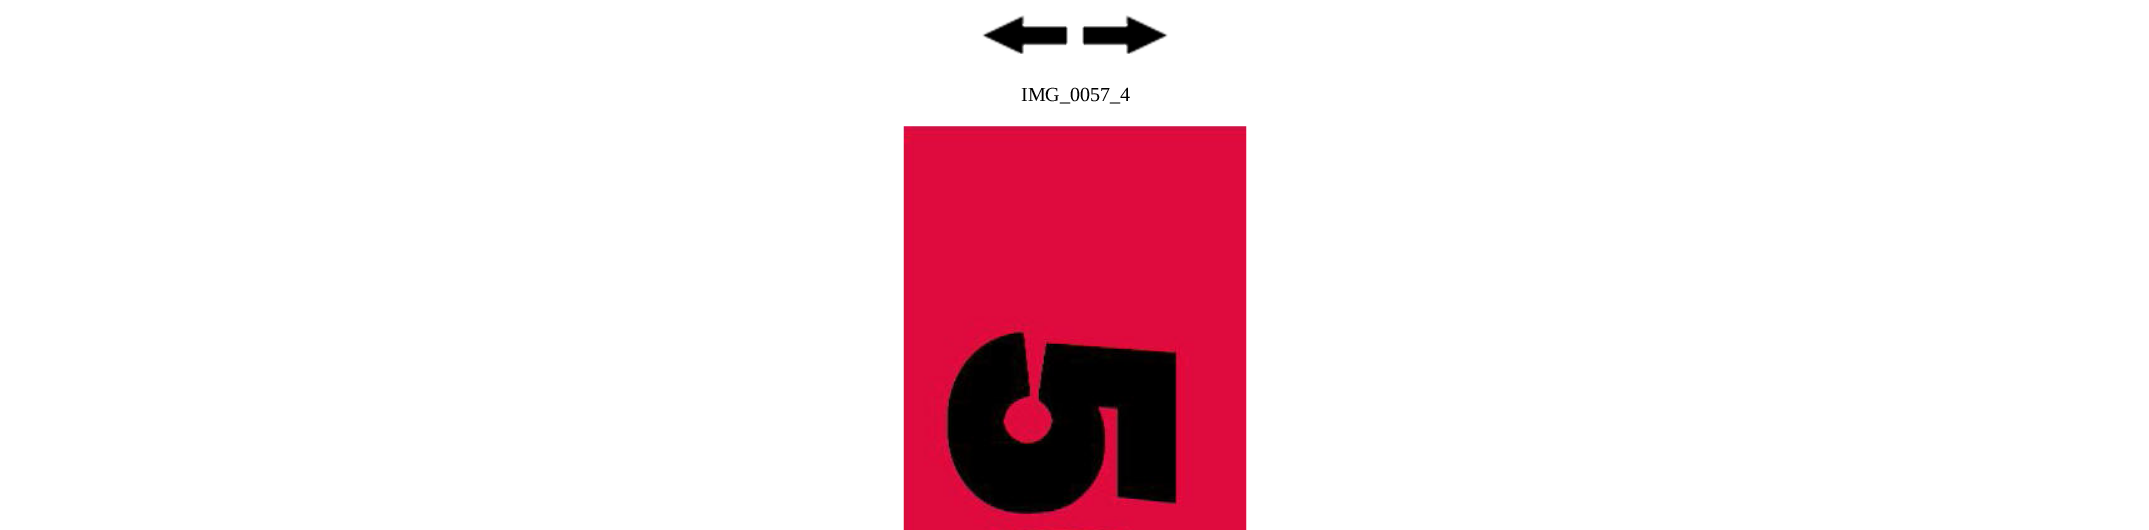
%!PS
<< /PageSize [2149 530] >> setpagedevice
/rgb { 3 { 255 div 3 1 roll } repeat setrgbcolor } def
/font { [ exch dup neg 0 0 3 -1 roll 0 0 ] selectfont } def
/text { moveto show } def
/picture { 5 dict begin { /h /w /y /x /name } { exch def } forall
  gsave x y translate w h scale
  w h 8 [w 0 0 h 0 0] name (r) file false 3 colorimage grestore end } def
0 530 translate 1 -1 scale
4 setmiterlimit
255 255 255 rgb
0 0 2149 530 rectfill
(img_01.rgb) 982 15 86 39 picture
(img_02.rgb) 1082 15 86 39 picture
(img_03.rgb) 903 126 344 404 picture
/LiberationSerif-Regular 20 font
0 0 0 rgb
(IMG_0057_4) 1021 101 text
showpage
